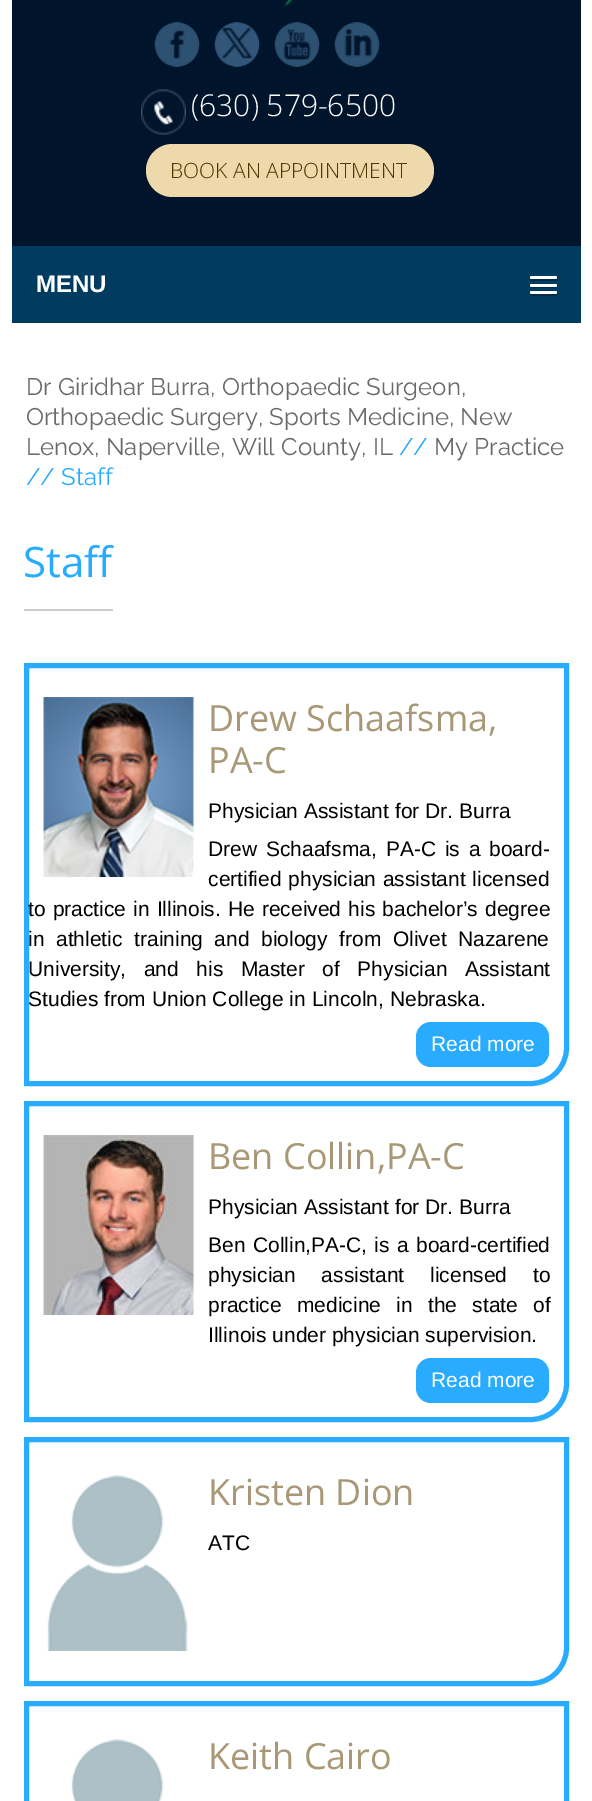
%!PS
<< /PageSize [592 1801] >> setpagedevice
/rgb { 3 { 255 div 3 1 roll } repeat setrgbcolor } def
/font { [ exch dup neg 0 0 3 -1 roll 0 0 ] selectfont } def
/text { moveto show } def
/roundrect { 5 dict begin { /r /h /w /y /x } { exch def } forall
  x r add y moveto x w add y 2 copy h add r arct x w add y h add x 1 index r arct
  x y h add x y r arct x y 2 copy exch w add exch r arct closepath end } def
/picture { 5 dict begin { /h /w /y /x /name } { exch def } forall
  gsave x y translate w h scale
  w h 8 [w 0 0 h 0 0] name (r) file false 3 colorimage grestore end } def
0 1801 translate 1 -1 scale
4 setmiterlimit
255 255 255 rgb
0 0 592 1801 rectfill
0 21 44 rgb
12 0 569 246 rectfill
(img_01.rgb) 284 0 9 7 picture
(img_02.rgb) 154 22 46 45 picture
(img_03.rgb) 214 22 46 45 picture
(img_04.rgb) 274 22 46 45 picture
(img_05.rgb) 334 22 46 45 picture
(img_06.rgb) 141 89 45 46 picture
238 217 172 rgb
146 144 288 53 26.5 roundrect fill
0 59 96 rgb
12 246 569 77 rectfill
0 44 72 rgb
530 279 moveto -1.5 3 5.5 2 5.5 2 rcurveto 20.5 0 rlineto 1 -0.5 1.5 -2 0.5 -3 rcurveto -1.5 1 rlineto -2 0.5 -24 0.5 -25 0 rcurveto closepath fill
255 255 255 rgb
530 276 27 3 1.5 roundrect fill
0 44 72 rgb
530 286 moveto -0.5 3 5 2 5.5 2 rcurveto 20 0 rlineto 1.5 0 2 -2 1 -2.5 rcurveto -1 1 rlineto -1.5 0.5 -25 0 -25.5 -0.5 rcurveto closepath fill
255 255 255 rgb
530 284 27 3 1.5 roundrect fill
0 44 72 rgb
530 294 moveto -1.5 3 5.5 2 5.5 2 rcurveto 20.5 0 rlineto 1 -0.5 1.5 -2 0.5 -3 rcurveto -1.5 1 rlineto -2 0.5 -24 0.5 -25 0 rcurveto closepath fill
255 255 255 rgb
530 291 27 3 1.5 roundrect fill
204 204 204 rgb
24 609 89 2 rectfill
41 171 255 rgb
5 setlinewidth
26.5 665.5 moveto 540 0 rlineto 0 382.5 rlineto 0 19.5 -16 35.5 -35.5 35.5 rcurveto -504.5 0 rlineto closepath stroke
(img_07.rgb) 43 697 151 180 picture
416 1022 133 45 15 roundrect fill
26.5 1103.5 moveto 540 0 rlineto 0 280.5 rlineto 0 19.5 -16 35.5 -35.5 35.5 rcurveto -504.5 0 rlineto closepath stroke
(img_08.rgb) 43 1135 151 180 picture
416 1358 133 45 15 roundrect fill
26.5 1439.5 moveto 540 0 rlineto 0 208.5 rlineto 0 19.5 -16 35.5 -35.5 35.5 rcurveto -504.5 0 rlineto closepath stroke
(img_09.rgb) 47 1475 141 176 picture
26.5 1703.5 540 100 rectstroke
(img_10.rgb) 71 1739 93 62 picture
/OpenSans-Light 30 font
255 255 255 rgb
(\(630\) 579-6500) 191 116 text
/OpenSans-Light 21 font
81 55 0 rgb
(BOOK AN APPOINTMENT) 170 178 text
/LiberationSans-Bold 24 font
255 255 255 rgb
(MENU) 36 292 text
/Raleway-Regular 24 font
105 105 105 rgb
(Dr Giridhar Burra, Orthopaedic Surgeon,) 26 395 text
(Orthopaedic Surgery, Sports Medicine, New) 26 425 text
(Lenox, Naperville, Will County, IL) 26 455 text
41 172 255 rgb
(//) 399 455 text
105 105 105 rgb
(My Practice) 434 455 text
41 172 255 rgb
(// Staff) 26 485 text
/OpenSans-Regular 42 font
(Staff) 23 577 text
/OpenSans-Regular 36 font
168 152 117 rgb
(Drew Schaafsma,) 208 731 text
(PA-C) 208 773 text
/LiberationSans-Regular 21 font
0 0 0 rgb
(Physician Assistant for Dr. Burra) 208 818 text
208 856 moveto 3 0 32 (Drew Schaafsma, PA-C is a board-) widthshow
208 886 moveto 1 0 32 (certified physician assistant licensed) widthshow
28 916 moveto 1.25 0 32 (to practice in Illinois. He received his bachelor’s degree) widthshow
28 946 moveto 5.75 0 32 (in athletic training and biology from Olivet Nazarene) widthshow
28 976 moveto 11.75 0 32 (University, and his Master of Physician Assistant) widthshow
(Studies from Union College in Lincoln, Nebraska.) 28 1006 text
255 255 255 rgb
(Read more) 431 1051 text
/OpenSans-Regular 36 font
168 152 117 rgb
(Ben Collin,PA-C) 208 1169 text
/LiberationSans-Regular 21 font
0 0 0 rgb
(Physician Assistant for Dr. Burra) 208 1214 text
208 1252 moveto 1.5 0 32 (Ben Collin,PA-C, is a board-certified) widthshow
208 1282 moveto 20 0 32 (physician assistant licensed to) widthshow
208 1312 moveto 9.5 0 32 (practice medicine in the state of) widthshow
(Illinois under physician supervision.) 208 1342 text
255 255 255 rgb
(Read more) 431 1387 text
/OpenSans-Regular 36 font
168 152 117 rgb
(Kristen Dion) 208 1505 text
/LiberationSans-Regular 21 font
0 0 0 rgb
(ATC) 208 1550 text
/OpenSans-Regular 36 font
168 152 117 rgb
(Keith Cairo) 208 1769 text
showpage
